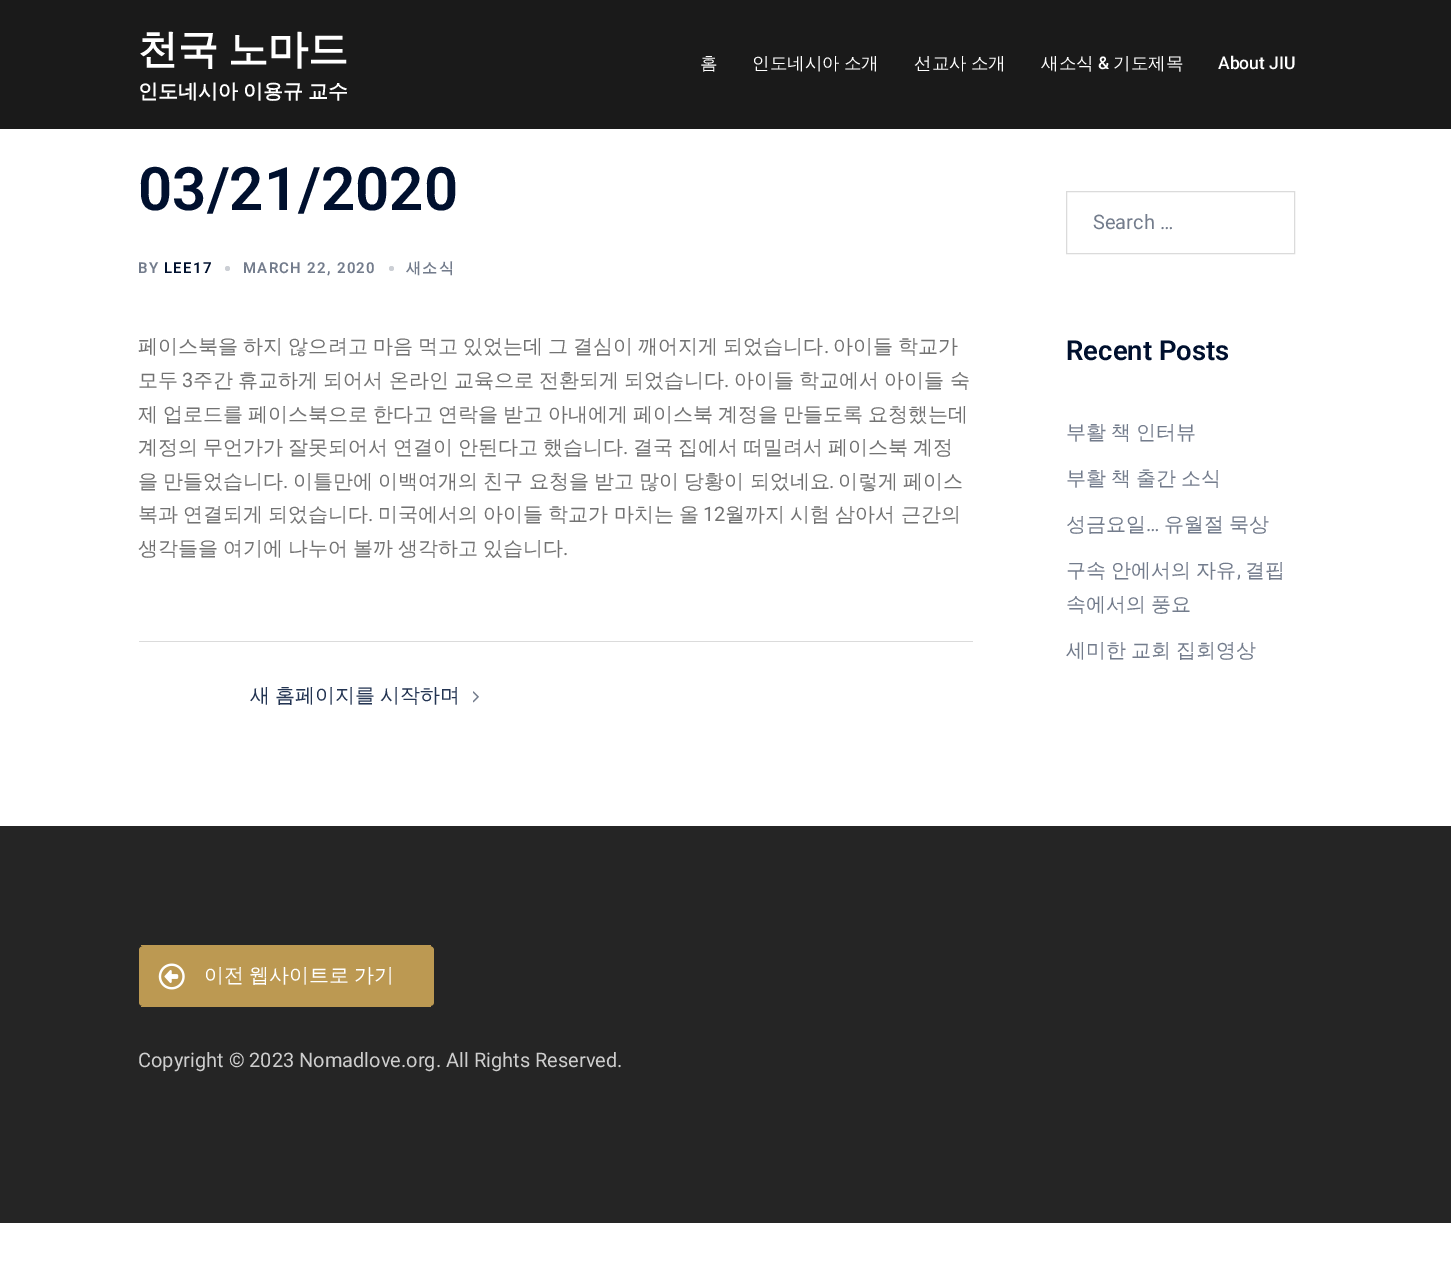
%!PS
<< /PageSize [1451 1287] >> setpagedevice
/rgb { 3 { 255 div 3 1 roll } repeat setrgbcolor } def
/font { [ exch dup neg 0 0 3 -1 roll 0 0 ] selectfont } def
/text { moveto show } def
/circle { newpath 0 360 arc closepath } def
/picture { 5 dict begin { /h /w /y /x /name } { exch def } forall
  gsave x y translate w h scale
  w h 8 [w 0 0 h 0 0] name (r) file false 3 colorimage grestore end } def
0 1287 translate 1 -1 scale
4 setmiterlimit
255 255 255 rgb
0 0 1451 1287 rectfill
26 26 26 rgb
0 0 1451 129 rectfill
204 207 213 rgb
227.5 268.5 2.5 circle fill
391.5 268.5 2.5 circle fill
219 219 219 rgb
139 641 834 1 rectfill
(img_01.rgb) 473 691 6 12 picture
1066.5 191.5 228 62 rectstroke
37 37 37 rgb
0 826 1451 397 rectfill
188 153 82 rgb
144 946 moveto 285 0 rlineto 3 0 5 2 5 4 rcurveto 0 52 rlineto 0 3 -2 4 -5 4 rcurveto -285 0 rlineto -3 0 -5 -1 -5 -4 rcurveto 0 -52 rlineto 0 -2 2 -4 5 -4 rcurveto closepath fill
141 945 290 1 rectfill
141 1006 290 1 rectfill
(img_02.rgb) 158 963 27 27 picture
/WenQuanYiZenHei-Bold 40 font
255 255 255 rgb
138 63 moveto -2 0 32 (천국 노마드) widthshow
/WenQuanYiZenHei-Bold 20 font
138 98 moveto -1 0 32 (인도네시아 이용규 교수) widthshow
/WenQuanYiZenHei-Medium 17.5 font
(홈) 700 69 text
752 69 moveto -1 0 32 (인도네시아 소개) widthshow
914 69 moveto -1 0 32 (선교사 소개) widthshow
(새소식) 1041 69 text
/Roboto-Medium 17.5 font
(&) 1098 69 text
/WenQuanYiZenHei-Medium 17.5 font
(기도제목) 1113 69 text
/Roboto-Medium 17.5 font
(About JIU) 1218 69 text
/Roboto-SemiBold 60 font
0 16 46 rgb
(03/21/2020) 138 210 text
/Roboto-SemiBold 15 font
115 124 140 rgb
138 273 moveto 1.25 0 (BY) ashow
0 16 46 rgb
164 273 moveto 1.25 0 (LEE17) ashow
115 124 140 rgb
243 273 moveto 1.25 0 (MARCH 22, 2020) ashow
/WenQuanYiZenHei-Bold 15 font
406 273 moveto 1.25 0 (새소식) ashow
/WenQuanYiZenHei-Medium 20 font
114 114 114 rgb
138 353 moveto -1 0 32 (페이스북을 하지 않으려고 마음 먹고 있었는데 그 결심이 깨어지게 되었습니다) widthshow
/Roboto-Regular 20 font
(.) 824 353 text
/WenQuanYiZenHei-Medium 20 font
833 353 moveto -1 0 32 (아이들 학교가) widthshow
(모두) 138 387 text
/Roboto-Regular 20 font
(3) 182 387 text
/WenQuanYiZenHei-Medium 20 font
193 387 moveto -0.75 0 32 (주간 휴교하게 되어서 온라인 교육으로 전환되게 되었습니다) widthshow
/Roboto-Regular 20 font
(.) 724 387 text
/WenQuanYiZenHei-Medium 20 font
734 387 moveto -0.75 0 32 (아이들 학교에서 아이들 숙) widthshow
138 421 moveto -1 0 32 (제 업로드를 페이스북으로 한다고 연락을 받고 아내에게 페이스북 계정을 만들도록 요청했는데) widthshow
138 454 moveto -1 0 32 (계정의 무언가가 잘못되어서 연결이 안된다고 했습니다) widthshow
/Roboto-Regular 20 font
(.) 623 454 text
/WenQuanYiZenHei-Medium 20 font
633 454 moveto -1 0 32 (결국 집에서 떠밀려서 페이스북 계정) widthshow
138 488 moveto -0.75 0 32 (을 만들었습니다) widthshow
/Roboto-Regular 20 font
(.) 283 488 text
/WenQuanYiZenHei-Medium 20 font
293 488 moveto -0.75 0 32 (이틀만에 이백여개의 친구 요청을 받고 많이 당황이 되었네요) widthshow
/Roboto-Regular 20 font
(.) 829 488 text
/WenQuanYiZenHei-Medium 20 font
838 488 moveto -0.75 0 32 (이렇게 페이스) widthshow
138 521 moveto -0.75 0 32 (복과 연결되게 되었습니다) widthshow
/Roboto-Regular 20 font
(.) 368 521 text
/WenQuanYiZenHei-Medium 20 font
378 521 moveto -0.75 0 32 (미국에서의 아이들 학교가 마치는 올) widthshow
/Roboto-Regular 20 font
(12) 703 521 text
/WenQuanYiZenHei-Medium 20 font
725 521 moveto -0.75 0 32 (월까지 시험 삼아서 근간의) widthshow
138 555 moveto -1 0 32 (생각들을 여기에 나누어 볼까 생각하고 있습니다) widthshow
/Roboto-Regular 20 font
(.) 563 555 text
/WenQuanYiZenHei-Medium 20 font
35 52 82 rgb
250 702 moveto -1 0 32 (새 홈페이지를 시작하며) widthshow
/Roboto-Regular 20 font
115 124 140 rgb
(Search …) 1093 229 text
/Roboto-SemiBold 27.5 font
0 16 46 rgb
(Recent Posts) 1066 360 text
/WenQuanYiZenHei-Medium 20 font
115 124 140 rgb
1066 439 moveto -1 0 32 (부활 책 인터뷰) widthshow
1066 485 moveto -1 0 32 (부활 책 출간 소식) widthshow
(성금요일) 1066 531 text
/Roboto-Regular 20 font
(…) 1146 531 text
/WenQuanYiZenHei-Medium 20 font
1164 531 moveto -1 0 32 (유월절 묵상) widthshow
1066 577 moveto -1 0 32 (구속 안에서의 자유) widthshow
/Roboto-Regular 20 font
(,) 1237 577 text
/WenQuanYiZenHei-Medium 20 font
(결핍) 1245 577 text
1066 611 moveto -1 0 32 (속에서의 풍요) widthshow
1066 657 moveto -1 0 32 (세미한 교회 집회영상) widthshow
255 255 255 rgb
204 982 moveto -1 0 32 (이전 웹사이트로 가기) widthshow
/Roboto-Regular 20 font
206 206 206 rgb
(Copyright © 2023 Nomadlove.org. All Rights Reserved.) 138 1067 text
showpage
